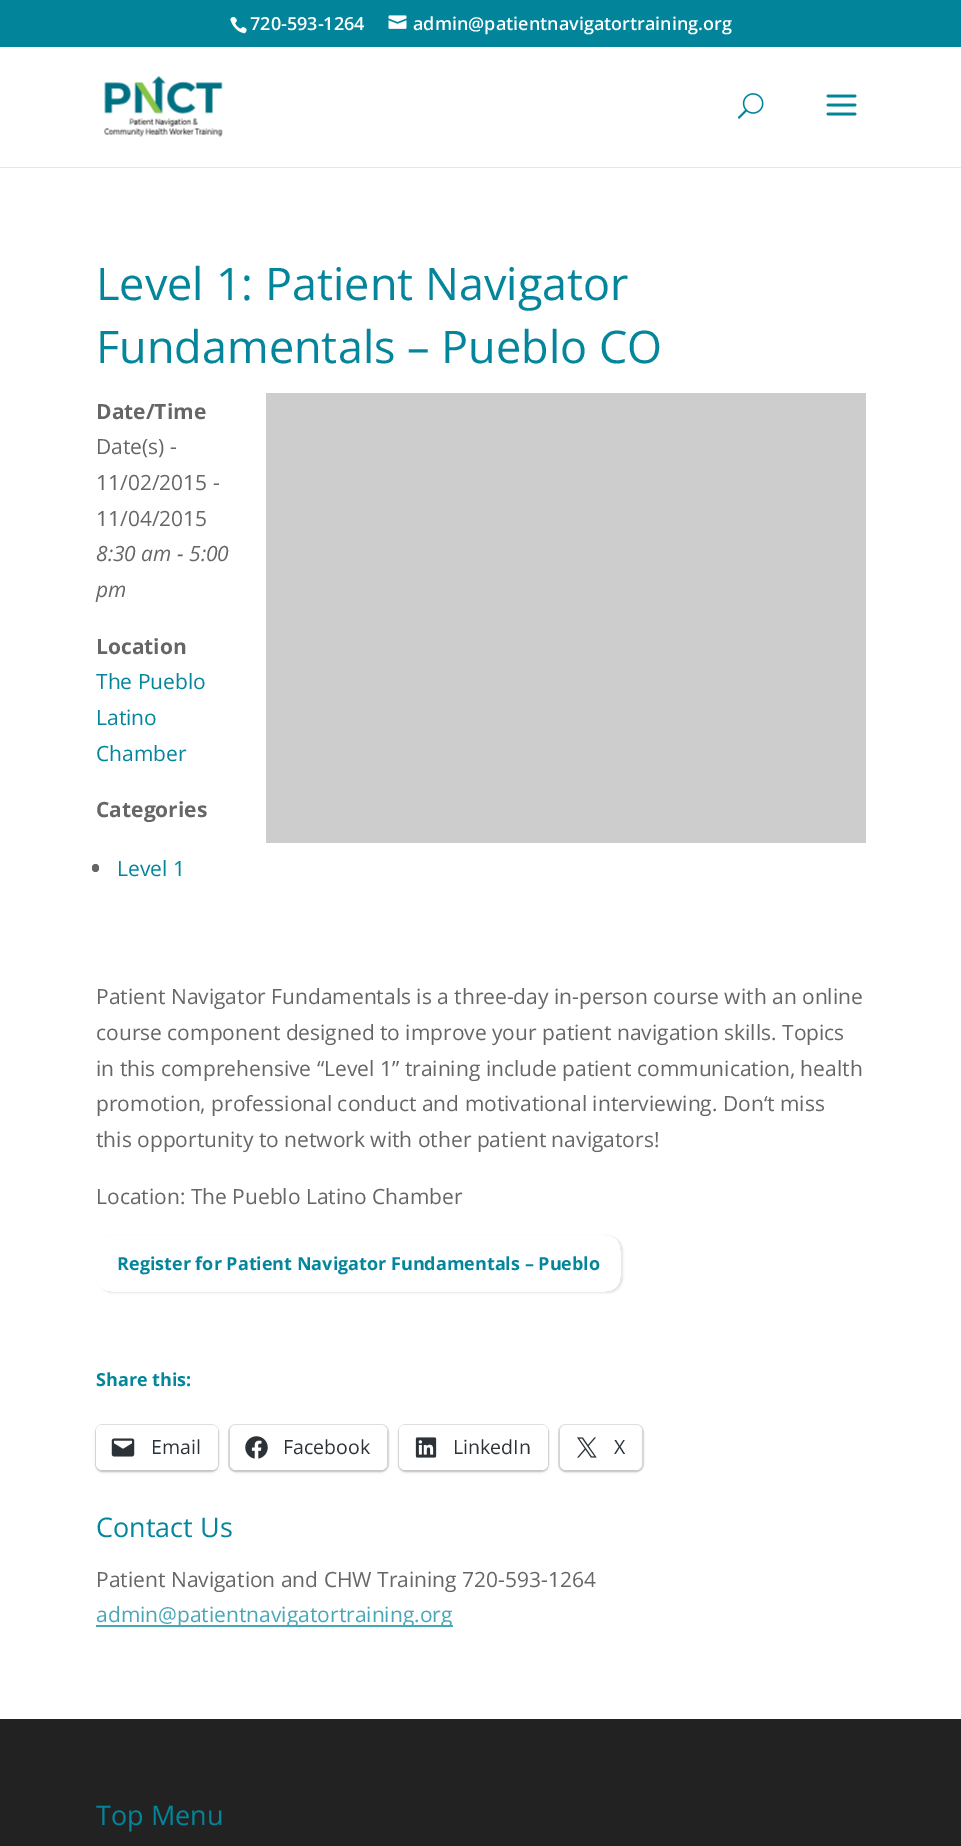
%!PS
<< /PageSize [961 1846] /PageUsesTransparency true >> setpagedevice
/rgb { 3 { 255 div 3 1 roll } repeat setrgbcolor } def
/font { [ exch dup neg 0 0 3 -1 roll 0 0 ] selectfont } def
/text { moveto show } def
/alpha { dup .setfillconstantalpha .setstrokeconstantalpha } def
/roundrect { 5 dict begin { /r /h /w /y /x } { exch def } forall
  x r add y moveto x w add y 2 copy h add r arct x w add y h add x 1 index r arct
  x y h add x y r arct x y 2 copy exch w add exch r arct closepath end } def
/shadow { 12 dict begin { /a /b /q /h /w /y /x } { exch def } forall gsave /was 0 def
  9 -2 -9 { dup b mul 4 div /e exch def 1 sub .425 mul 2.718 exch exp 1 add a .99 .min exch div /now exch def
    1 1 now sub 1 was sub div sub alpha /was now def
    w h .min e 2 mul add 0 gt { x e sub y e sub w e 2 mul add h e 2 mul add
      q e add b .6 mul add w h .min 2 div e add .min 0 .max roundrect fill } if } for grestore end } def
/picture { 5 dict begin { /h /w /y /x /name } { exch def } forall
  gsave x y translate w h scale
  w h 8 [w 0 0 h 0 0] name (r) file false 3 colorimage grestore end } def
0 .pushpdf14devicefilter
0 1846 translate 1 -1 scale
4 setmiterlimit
255 255 255 rgb
0 0 961 1846 rectfill
2 133 154 rgb
0 0 961 47 rectfill
(img_01.rgb) 230 16 17 18 picture
(img_02.rgb) 388 15 19 14 picture
230 230 230 rgb
0 166 moveto 0 2 rlineto 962 0 rlineto 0 -120 rlineto 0 118 rlineto closepath fill
255 255 255 rgb
0 166 961 1 rectfill
(img_03.rgb) 104 76 119 61 picture
(img_04.rgb) 737 93 27 26 picture
(img_05.rgb) 826 94 31 22 picture
205 205 205 rgb
266 393 600 450 rectfill
102 102 102 rgb
92 864 7 8 3.5 roundrect fill
gsave
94 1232 moveto 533 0 rlineto 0 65 rlineto -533 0 rlineto closepath 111 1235 moveto 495 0 rlineto 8.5 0 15 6.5 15 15 rcurveto 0 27 rlineto 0 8.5 -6.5 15 -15 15 rcurveto -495 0 rlineto -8.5 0 -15 -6.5 -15 -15 rcurveto 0 -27 rlineto 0 -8.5 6.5 -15 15 -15 rcurveto closepath eoclip newpath
0 0 0 rgb
98 1236 525 57 15 1 0.1 shadow
grestore
224 224 224 rgb
2 setlinewidth
96 1425 122 46 7 roundrect stroke
0 0 0 rgb
96 1427 122 45 6 1.5 0.12 shadow
255 255 255 rgb
96 1425 122 45 6 roundrect fill
(img_06.rgb) 111 1438 24 19 picture
224 224 224 rgb
229 1425 159 46 7 roundrect stroke
0 0 0 rgb
230 1427 157 45 6 1.5 0.12 shadow
255 255 255 rgb
230 1425 157 45 6 roundrect fill
(img_07.rgb) 245 1436 23 23 picture
224 224 224 rgb
399 1425 149 46 7 roundrect stroke
0 0 0 rgb
399 1427 149 45 6 1.5 0.12 shadow
255 255 255 rgb
399 1425 149 45 6 roundrect fill
(img_08.rgb) 415 1437 22 21 picture
224 224 224 rgb
559 1425 84 46 7 roundrect stroke
0 0 0 rgb
560 1427 82 45 6 1.5 0.12 shadow
255 255 255 rgb
560 1425 82 45 6 roundrect fill
(img_09.rgb) 577 1437 20 21 picture
72 167 182 rgb
96 1625 357 2 rectfill
34 34 34 rgb
0 1719 961 127 rectfill
/OpenSans-SemiBold 18 font
255 255 255 rgb
(720-593-1264) 250 30 text
(admin@patientnavigatortraining.org) 413 30 text
/OpenSans-Regular 45 font
3 133 155 rgb
(Level 1: Patient Navigator) 96 300 text
(Fundamentals – Pueblo CO) 96 363 text
/OpenSans-Bold 21 font
102 102 102 rgb
(Date/Time) 96 419 text
/OpenSans-Regular 21 font
(Date\(s\) -) 96 454 text
(11/02/2015 -) 96 490 text
(11/04/2015) 96 526 text
/OpenSans-Italic 21 font
(8:30 am - 5:00) 96 561 text
(pm) 96 597 text
/OpenSans-Bold 21 font
(Location) 96 654 text
/OpenSans-Regular 21 font
3 133 155 rgb
(The Pueblo) 96 689 text
(Latino) 96 725 text
(Chamber) 96 761 text
/OpenSans-Bold 21 font
102 102 102 rgb
(Categories) 96 817 text
/OpenSans-Regular 21 font
3 133 155 rgb
(Level 1) 117 876 text
102 102 102 rgb
(Patient Navigator Fundamentals is a three-day in-person course with an online) 96 1004 text
(course component designed to improve your patient navigation skills. Topics) 96 1040 text
(in this comprehensive “Level 1” training include patient communication, health) 96 1076 text
(promotion, professional conduct and motivational interviewing. Don‘t miss) 96 1111 text
(this opportunity to network with other patient navigators!) 96 1147 text
(Location: The Pueblo Latino Chamber) 96 1204 text
/OpenSans-Bold 18 font
3 133 155 rgb
(Register for Patient Navigator Fundamentals – Pueblo) 117 1270 text
(Share this:) 96 1386 text
/OpenSans-Regular 19.5 font
44 51 56 rgb
(Email) 151 1454 text
(Facebook) 283 1454 text
(LinkedIn) 453 1454 text
(X) 614 1454 text
/OpenSans-Regular 27 font
3 133 155 rgb
(Contact Us) 96 1537 text
/OpenSans-Regular 21 font
102 102 102 rgb
(Patient Navigation and CHW Training 720-593-1264) 96 1587 text
72 167 182 rgb
(admin@patientnavigatortraining.org) 96 1622 text
/OpenSans-Regular 27 font
3 133 155 rgb
(Top Menu) 96 1825 text
.poppdf14devicefilter showpage
